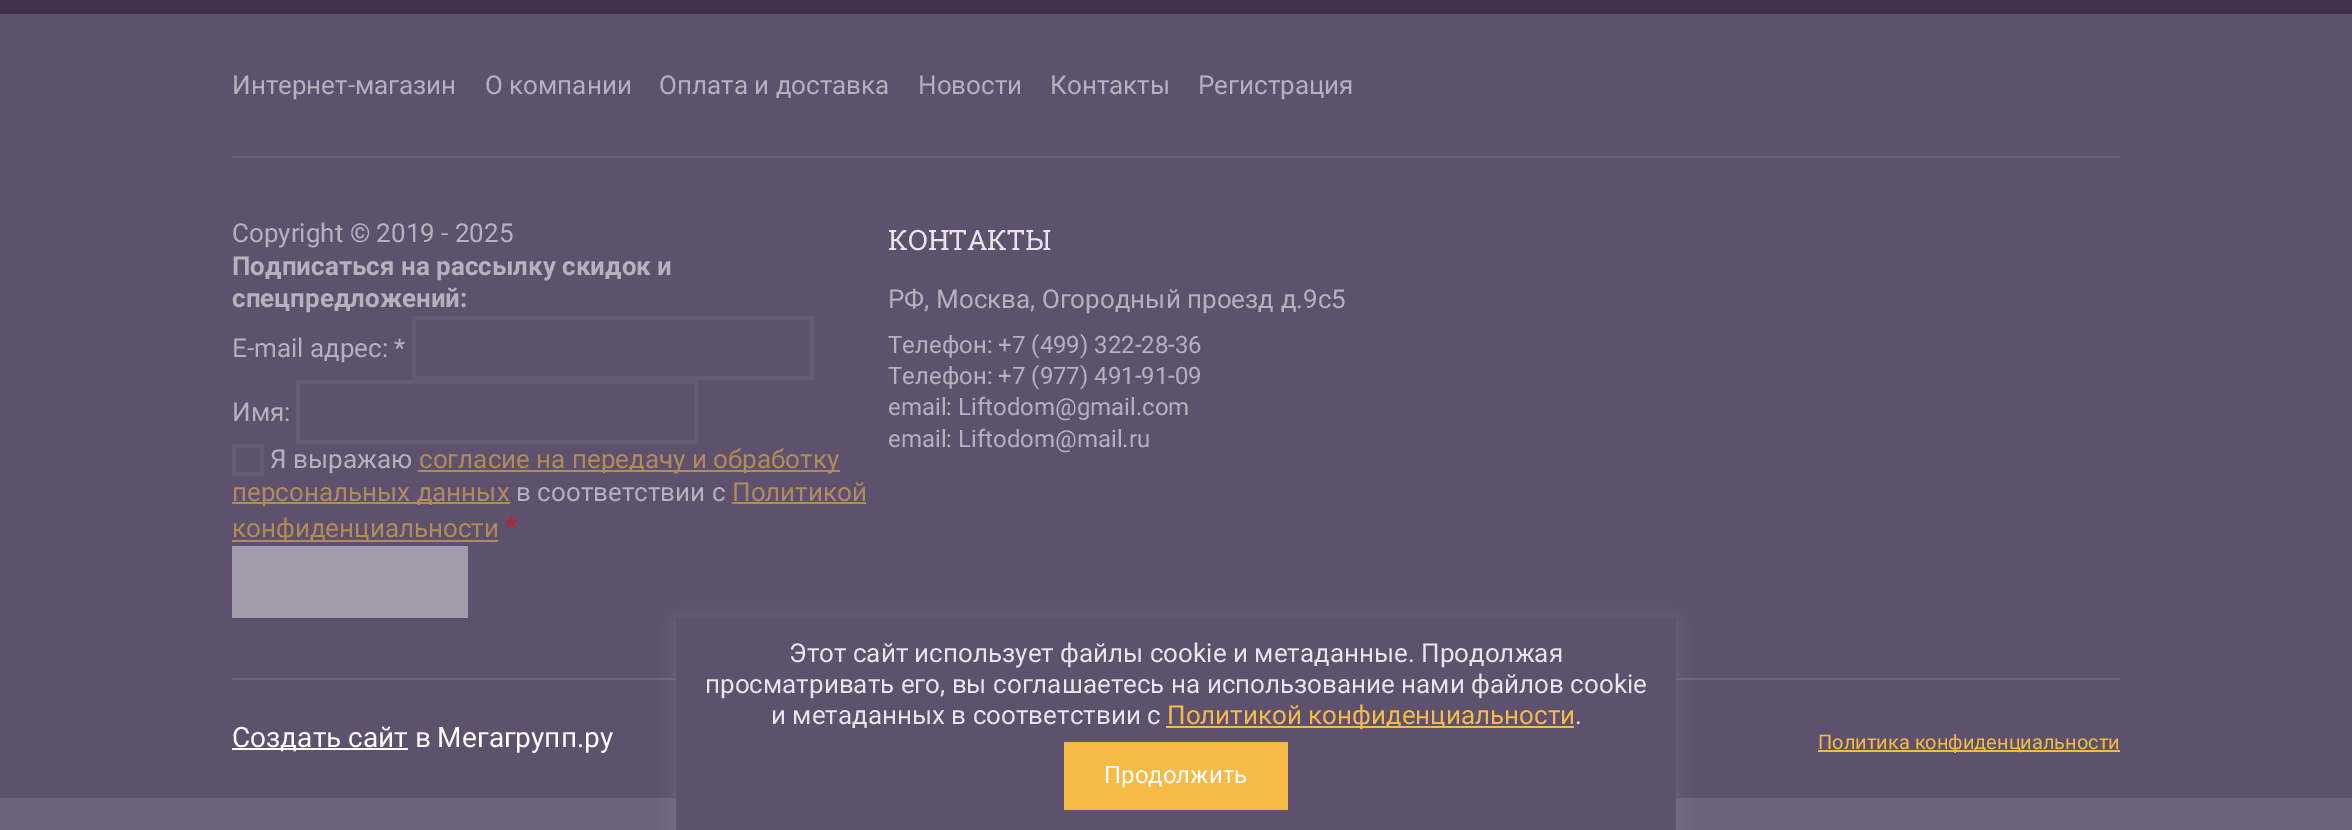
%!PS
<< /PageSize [2352 830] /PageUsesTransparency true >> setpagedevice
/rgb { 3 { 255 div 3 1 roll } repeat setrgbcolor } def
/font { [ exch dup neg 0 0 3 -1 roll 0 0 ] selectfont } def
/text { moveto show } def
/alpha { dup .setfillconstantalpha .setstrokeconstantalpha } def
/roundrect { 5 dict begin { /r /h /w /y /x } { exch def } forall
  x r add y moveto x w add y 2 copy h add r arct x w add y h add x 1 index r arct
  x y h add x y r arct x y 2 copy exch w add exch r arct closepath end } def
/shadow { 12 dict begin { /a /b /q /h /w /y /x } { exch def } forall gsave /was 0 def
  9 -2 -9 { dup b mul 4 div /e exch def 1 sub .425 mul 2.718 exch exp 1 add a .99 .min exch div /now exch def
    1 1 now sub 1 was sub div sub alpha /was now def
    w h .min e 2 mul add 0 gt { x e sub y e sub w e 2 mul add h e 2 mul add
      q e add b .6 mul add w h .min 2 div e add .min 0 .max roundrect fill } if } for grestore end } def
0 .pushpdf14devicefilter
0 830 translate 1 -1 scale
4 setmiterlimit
68 51 80 rgb
0 0 2352 830 rectfill
0 0 0 rgb
0 16 2352 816 0 4 0.28 shadow
93 81 109 rgb
0 14 2352 784 rectfill
109 98 124 rgb
0 798 2352 32 rectfill
232 156 1888 2 rectfill
102 91 117 rgb
4 setlinewidth
414 318 398 60 rectstroke
298 382 398 60 rectstroke
234 446 28 28 rectstroke
177 139 88 rgb
418 470 422 2 rectfill
232 502 278 2 rectfill
732 502 134 2 rectfill
232 540 266 2 rectfill
161 155 170 rgb
232 546 236 72 rectfill
109 98 124 rgb
232 678 1888 2 rectfill
255 255 255 rgb
232 748 176 2 rectfill
246 186 71 rgb
1818 750 302 2 rectfill
255 255 255 rgb
676 620 1000 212 0 10 0.1 shadow
93 81 109 rgb
676 618 1000 212 rectfill
246 186 71 rgb
1166 726 408 2 rectfill
1064 742 224 68 rectfill
/Roboto-Regular 26 font
182 177 189 rgb
(Интернет-магазин) 232 94 text
(О компании) 485 94 text
(Оплата и доставка) 659 94 text
(Новости) 918 94 text
(Контакты) 1050 94 text
(Регистрация) 1198 94 text
(Copyright © 2019 - 2025) 232 242 text
/Roboto-Bold 26 font
(Подписаться на рассылку скидок и) 232 275 text
(спецпредложений:) 232 307 text
/Roboto-Regular 26 font
(E-mail адрес: *) 232 357 text
(Имя:) 232 421 text
(Я выражаю) 270 468 text
177 139 88 rgb
(согласие на передачу и обработку) 419 468 text
(персональных данных) 232 501 text
182 177 189 rgb
(в соответствии с) 516 501 text
177 139 88 rgb
(Политикой) 732 501 text
(конфиденциальности) 232 537 text
/Roboto-Regular 30 font
182 36 49 rgb
(*) 505 537 text
/RobotoSlab-Regular 28 font
231 229 233 rgb
(КОНТАКТЫ) 888 250 text
/Roboto-Regular 26 font
182 177 189 rgb
(РФ, Москва, Огородный проезд д.9с5) 888 308 text
/Roboto-Regular 24 font
(Телефон: +7 \(499\) 322-28-36) 888 353 text
(Телефон: +7 \(977\) 491-91-09) 888 384 text
(email: Liftodom@gmail.com) 888 415 text
(email: Liftodom@mail.ru) 888 447 text
/Roboto-Regular 28 font
255 255 255 rgb
(Создать сайт в Мегагрупп.ру) 232 747 text
/Roboto-Regular 20 font
246 186 71 rgb
(Политика конфиденциальности) 1818 749 text
/Roboto-Regular 26 font
231 229 233 rgb
(Этот сайт использует файлы cookie и метаданные. Продолжая) 789 662 text
(просматривать его, вы соглашаетесь на использование нами файлов cookie) 705 693 text
(и метаданных в соответствии с) 771 724 text
246 186 71 rgb
(Политикой конфиденциальности) 1167 724 text
231 229 233 rgb
(.) 1575 724 text
/Roboto-Regular 24 font
255 255 255 rgb
(Продолжить) 1104 783 text
.poppdf14devicefilter showpage
